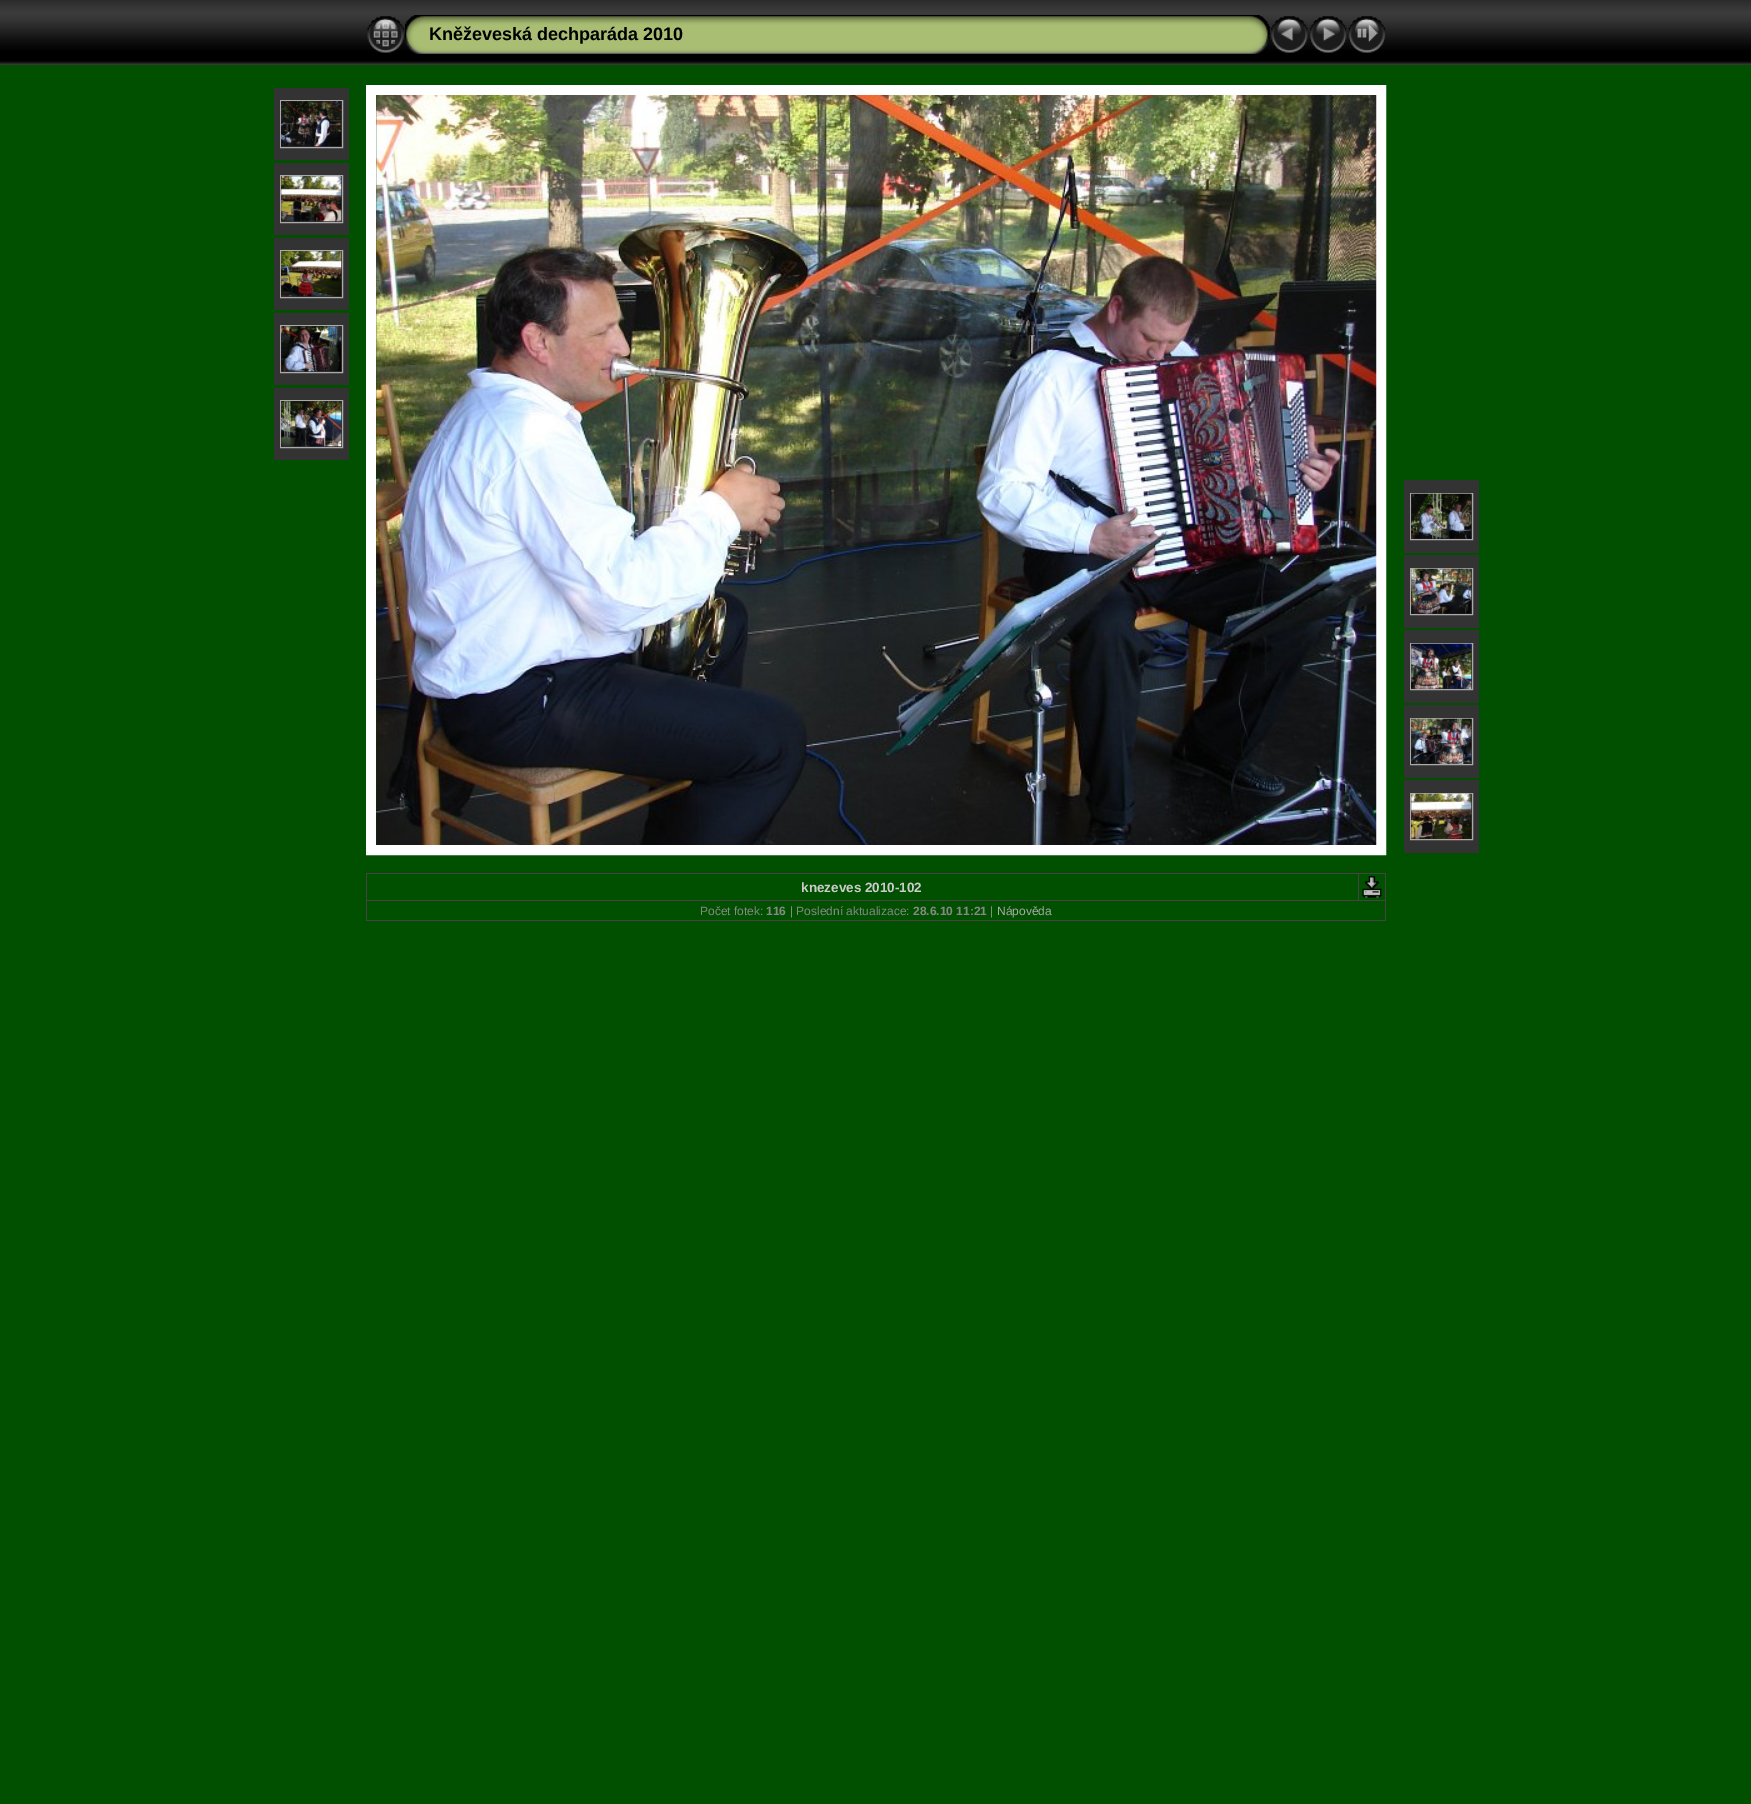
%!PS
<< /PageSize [1751 1804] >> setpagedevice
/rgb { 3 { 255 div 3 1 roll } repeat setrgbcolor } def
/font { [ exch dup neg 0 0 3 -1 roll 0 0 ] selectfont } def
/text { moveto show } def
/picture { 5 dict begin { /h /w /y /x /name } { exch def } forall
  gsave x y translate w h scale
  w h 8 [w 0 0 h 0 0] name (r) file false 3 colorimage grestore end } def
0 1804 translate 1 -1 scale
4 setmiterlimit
0 80 0 rgb
0 0 1751 1804 rectfill
(img_01.rgb) 0 0 1751 65 picture
(img_02.rgb) 367 16 37 37 picture
(img_03.rgb) 405 15 25 39 picture
(img_04.rgb) 430 15 815 39 picture
(img_05.rgb) 1245 15 25 39 picture
(img_06.rgb) 1271 16 37 37 picture
(img_07.rgb) 1310 16 37 37 picture
(img_08.rgb) 1348 16 38 37 picture
51 51 51 rgb
274 88 75 72 rectfill
170 170 170 rgb
280.5 100.5 62 47 rectstroke
(img_09.rgb) 281 101 61 46 picture
51 51 51 rgb
274 163 75 72 rectfill
170 170 170 rgb
280.5 175.5 62 47 rectstroke
(img_10.rgb) 281 176 61 46 picture
51 51 51 rgb
274 238 75 72 rectfill
170 170 170 rgb
280.5 250.5 62 47 rectstroke
(img_11.rgb) 281 251 61 46 picture
51 51 51 rgb
274 313 75 72 rectfill
170 170 170 rgb
280.5 325.5 62 47 rectstroke
(img_12.rgb) 281 326 61 46 picture
51 51 51 rgb
274 388 75 72 rectfill
170 170 170 rgb
280.5 400.5 62 47 rectstroke
(img_13.rgb) 281 401 61 46 picture
255 255 255 rgb
10 setlinewidth
371 90 1010 760 rectstroke
(img_14.rgb) 376 95 1001 750 picture
51 51 51 rgb
1404 480 75 73 rectfill
170 170 170 rgb
1 setlinewidth
1410.5 493.5 62 46 rectstroke
(img_15.rgb) 1411 493 61 46 picture
51 51 51 rgb
1404 555 75 73 rectfill
170 170 170 rgb
1410.5 568.5 62 46 rectstroke
(img_16.rgb) 1411 568 61 46 picture
51 51 51 rgb
1404 630 75 73 rectfill
170 170 170 rgb
1410.5 643.5 62 46 rectstroke
(img_17.rgb) 1411 643 61 46 picture
51 51 51 rgb
1404 705 75 73 rectfill
170 170 170 rgb
1410.5 718.5 62 46 rectstroke
(img_18.rgb) 1411 718 61 46 picture
51 51 51 rgb
1404 780 75 73 rectfill
170 170 170 rgb
1410.5 793.5 62 46 rectstroke
(img_19.rgb) 1411 793 61 46 picture
68 68 68 rgb
366 873 1020 1 rectfill
1385 873 1 48 rectfill
366 920 1020 1 rectfill
366 873 1 48 rectfill
366 900 1020 1 rectfill
1358 873 1 28 rectfill
(img_20.rgb) 1362 876 20 22 picture
/LiberationSans-Bold 18 font
0 0 0 rgb
(Kněževeská dechparáda 2010) 429 40 text
/LiberationSans-Bold 13.5 font
204 204 204 rgb
(knezeves 2010-102) 801 892 text
/LiberationSans-Regular 12 font
136 136 136 rgb
(Počet fotek:) 700 915 text
/LiberationSans-Bold 12 font
(116) 766 915 text
/LiberationSans-Regular 12 font
(| Poslední aktualizace:) 790 915 text
/LiberationSans-Bold 12 font
(28.6.10 11:21) 913 915 text
/LiberationSans-Regular 12 font
(|) 990 915 text
170 170 170 rgb
(Nápověda) 997 915 text
showpage
